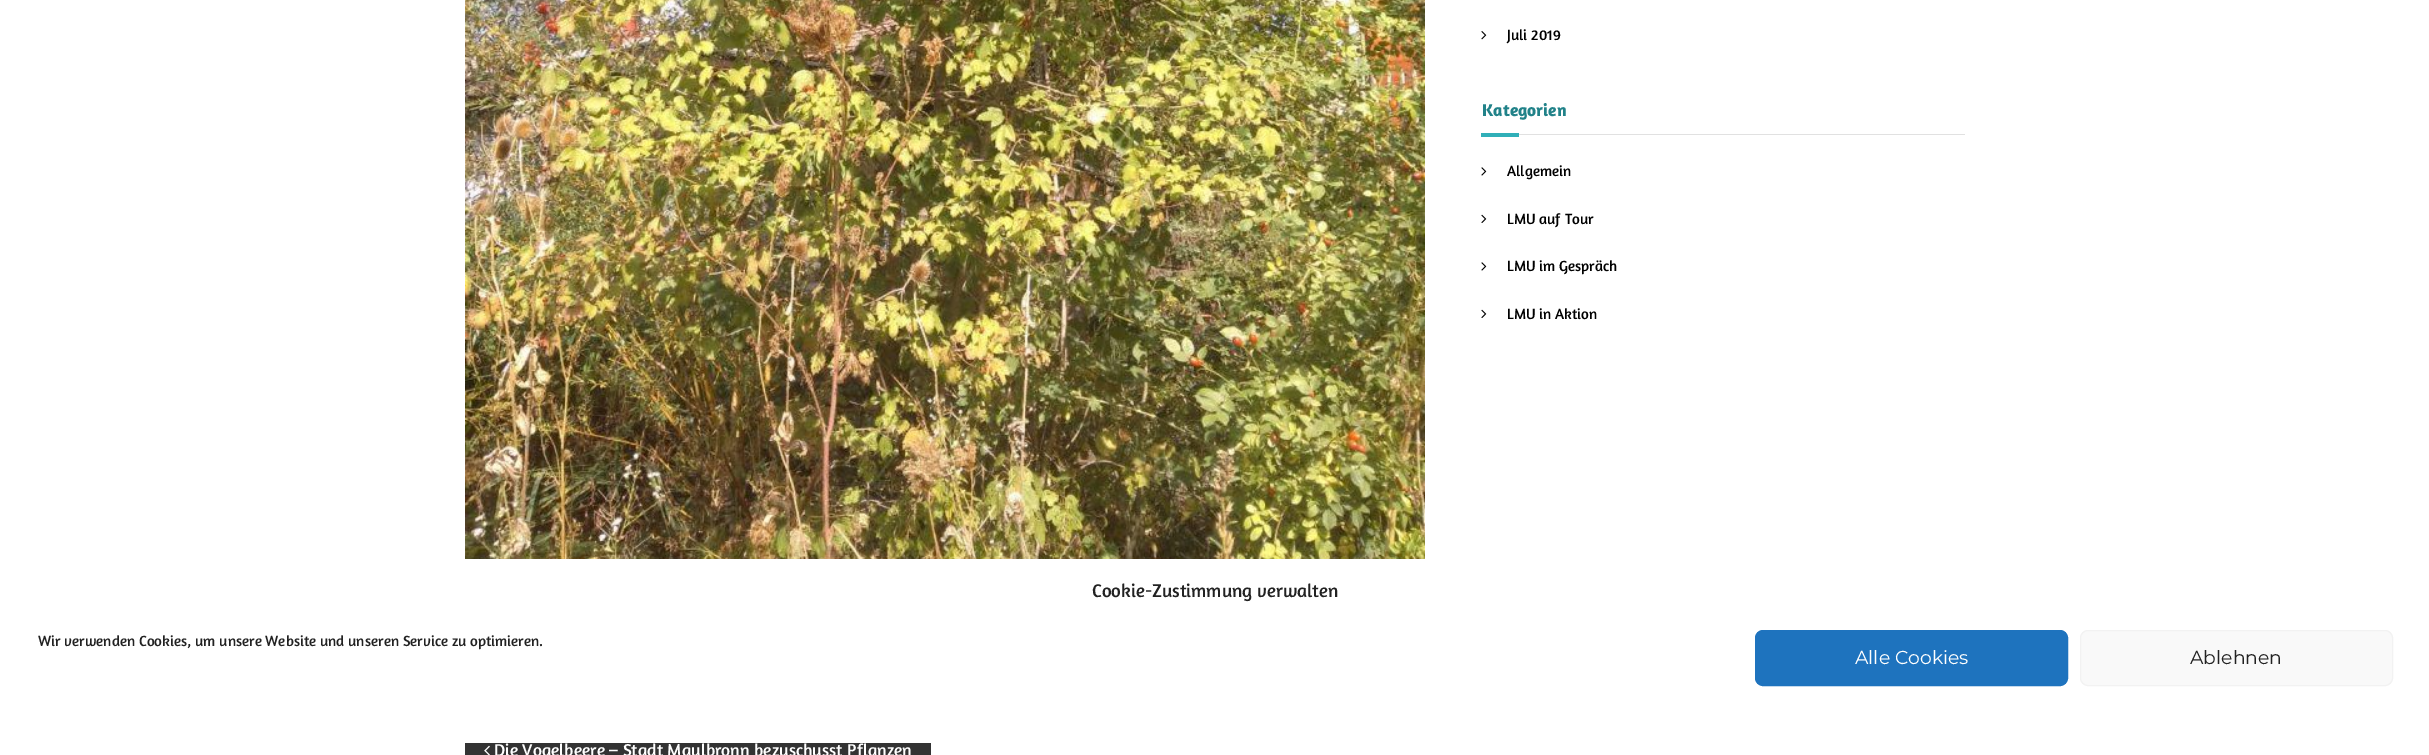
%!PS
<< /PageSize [2429 755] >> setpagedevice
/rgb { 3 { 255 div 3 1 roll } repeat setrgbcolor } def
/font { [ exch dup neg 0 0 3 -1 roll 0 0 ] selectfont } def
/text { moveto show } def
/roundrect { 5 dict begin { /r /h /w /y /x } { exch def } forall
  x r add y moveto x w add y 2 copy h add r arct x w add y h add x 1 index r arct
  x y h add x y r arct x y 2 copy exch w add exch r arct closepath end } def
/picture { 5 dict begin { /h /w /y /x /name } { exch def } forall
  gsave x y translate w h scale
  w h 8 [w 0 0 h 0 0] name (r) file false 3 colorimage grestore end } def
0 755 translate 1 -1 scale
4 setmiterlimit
255 255 255 rgb
0 0 2429 755 rectfill
(img_01.rgb) 1481 31 6 9 picture
48 175 184 rgb
1481 133 38 4 rectfill
225 225 225 rgb
1519 134 446 1 rectfill
(img_02.rgb) 1481 167 6 9 picture
(img_03.rgb) 1481 214 6 9 picture
(img_02.rgb) 1481 262 6 9 picture
(img_03.rgb) 1481 309 6 9 picture
(img_04.rgb) 465 0 960 559 picture
51 51 51 rgb
465 743 466 12 rectfill
(img_05.rgb) 484 745 6 10 picture
30 115 190 rgb
1755.5 630.5 312 55 7.5 roundrect gsave fill grestore
stroke
249 249 249 rgb
2080.5 630.5 312 55 7.5 roundrect gsave fill grestore
242 242 242 rgb
stroke
/Amaranth-Regular 15 font
0 0 0 rgb
(Juli 2019) 1507 40 text
/Amaranth-Bold 17.5 font
33 130 137 rgb
(Kategorien) 1482 116 text
/Amaranth-Regular 15 font
0 0 0 rgb
(Allgemein) 1507 176 text
(LMU auf Tour) 1507 224 text
(LMU im Gespräch) 1507 271 text
(LMU in Aktion) 1507 319 text
/Amaranth-Regular 17.5 font
255 255 255 rgb
(Die Vogelbeere – Stadt Maulbronn bezuschusst Pflanzen) 494 756 text
/Amaranth-Regular 18.75 font
34 34 34 rgb
(Cookie-Zustimmung verwalten) 1092 597 text
/Amaranth-Regular 15 font
(Wir verwenden Cookies, um unsere Website und unseren Service zu optimieren.) 38 646 text
/Montserrat-Regular 18.75 font
255 255 255 rgb
(Alle Cookies) 1855 664 text
34 34 34 rgb
(Ablehnen) 2190 664 text
showpage
